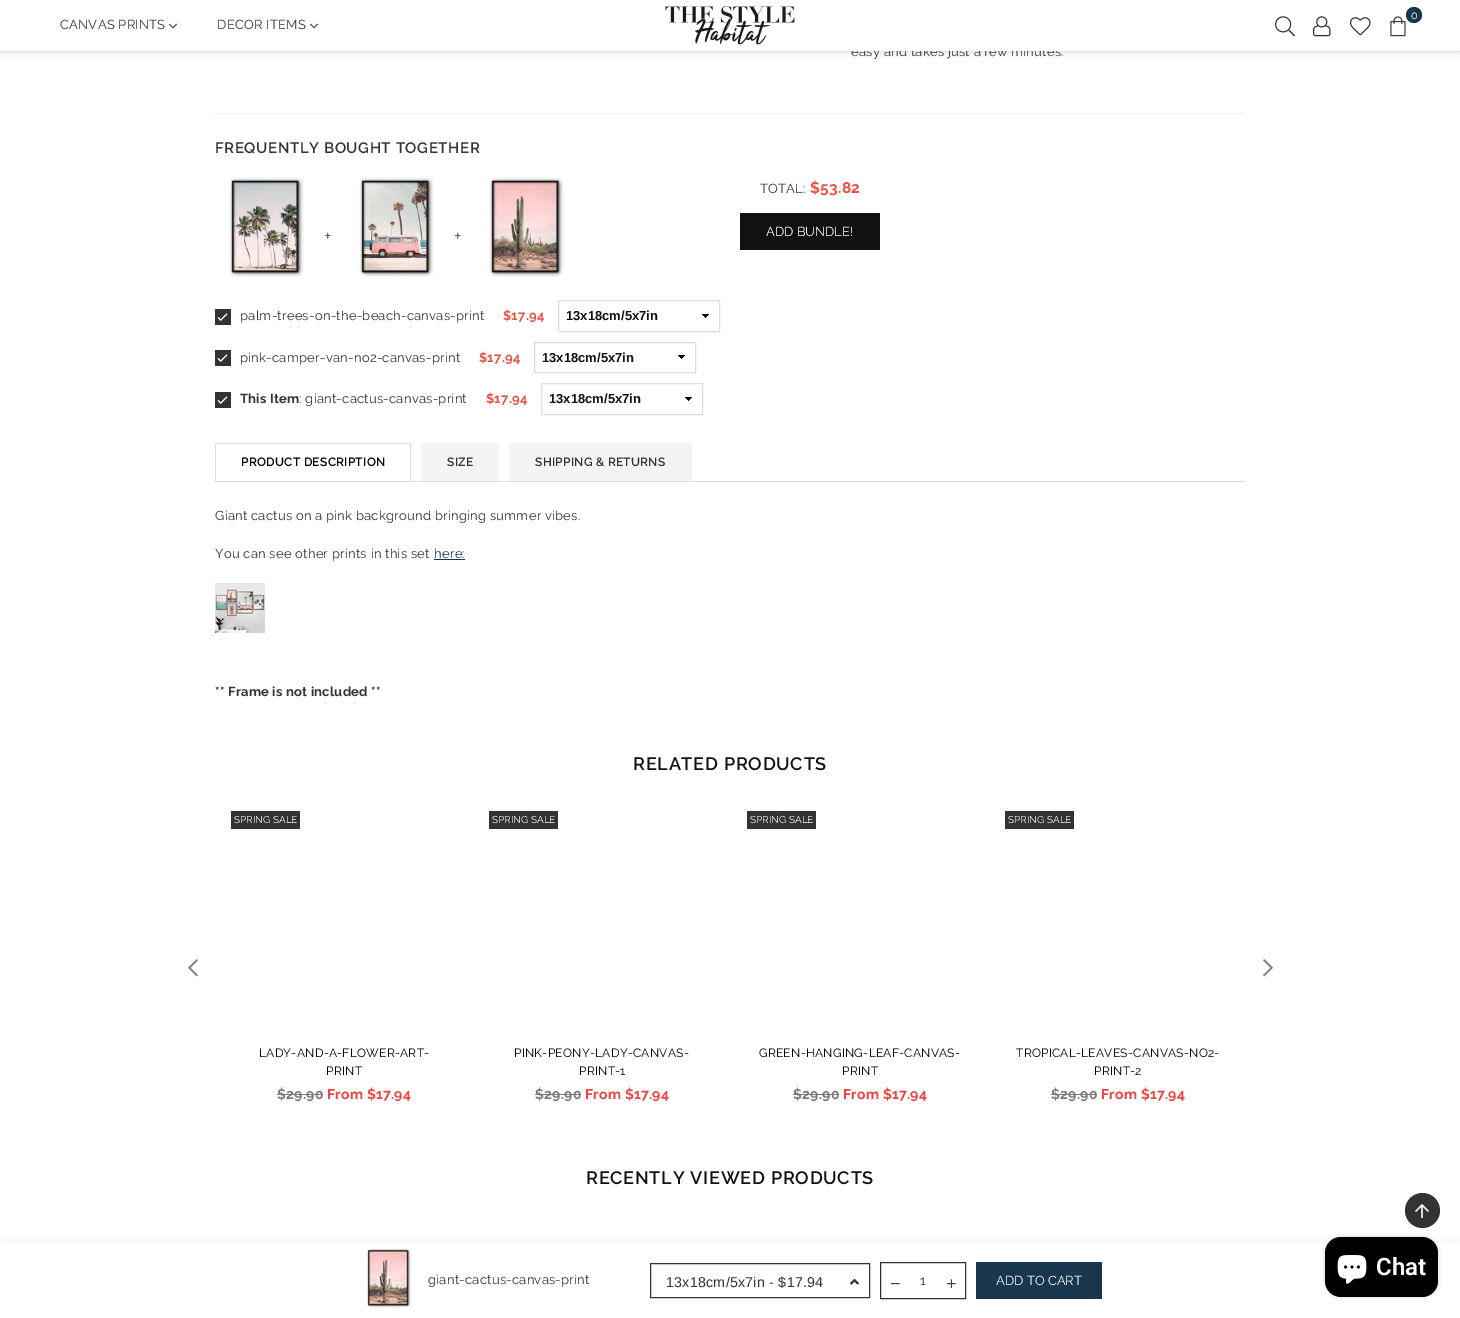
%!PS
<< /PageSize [1460 1318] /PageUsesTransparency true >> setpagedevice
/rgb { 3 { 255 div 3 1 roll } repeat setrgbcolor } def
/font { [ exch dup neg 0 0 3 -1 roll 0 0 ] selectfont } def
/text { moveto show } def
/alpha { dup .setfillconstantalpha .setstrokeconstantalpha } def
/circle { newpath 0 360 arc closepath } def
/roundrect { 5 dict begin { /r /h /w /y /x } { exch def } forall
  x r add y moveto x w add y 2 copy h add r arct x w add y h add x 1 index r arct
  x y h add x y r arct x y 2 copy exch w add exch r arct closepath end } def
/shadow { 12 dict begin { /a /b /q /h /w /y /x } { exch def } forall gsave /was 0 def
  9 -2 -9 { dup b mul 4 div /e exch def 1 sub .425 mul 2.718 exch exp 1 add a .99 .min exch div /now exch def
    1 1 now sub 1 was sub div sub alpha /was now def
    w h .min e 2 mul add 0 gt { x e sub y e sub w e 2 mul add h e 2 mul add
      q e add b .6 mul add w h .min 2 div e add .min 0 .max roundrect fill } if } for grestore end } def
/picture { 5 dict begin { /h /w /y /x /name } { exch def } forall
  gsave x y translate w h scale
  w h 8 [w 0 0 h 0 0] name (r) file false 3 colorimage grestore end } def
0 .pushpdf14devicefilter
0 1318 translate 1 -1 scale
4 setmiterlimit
255 255 255 rgb
0 0 1460 1318 rectfill
0 0 0 rgb
0 0 1460 51 0 3.5 0.2 shadow
238 238 238 rgb
215 113 1030 1 rectfill
17 17 17 rgb
740 213 140 37 rectfill
(img_07.rgb) 229 177 75 100 picture
(img_08.rgb) 359 177 75 100 picture
(img_09.rgb) 489 177 75 100 picture
51 51 51 rgb
215 309 16 16 rectfill
(img_10.rgb) 217 313 11 8 picture
(img_11.rgb) 702 314 7 4 picture
221 221 221 rgb
558.5 300.5 161 31 rectstroke
51 51 51 rgb
215 350 16 16 rectfill
(img_10.rgb) 217 354 11 8 picture
(img_11.rgb) 678 355 7 4 picture
221 221 221 rgb
534.5 342.5 161 30 rectstroke
51 51 51 rgb
215 392 16 16 rectfill
(img_10.rgb) 217 396 11 8 picture
(img_11.rgb) 685 397 7 4 picture
221 221 221 rgb
541.5 383.5 161 31 rectstroke
215 481 1030 1 rectfill
215 443 196 1 rectfill
410 443 1 38 rectfill
215 443 1 38 rectfill
244 244 244 rgb
421 443 78 38 rectfill
509 443 183 38 rectfill
24 54 76 rgb
434 559 31 1 rectfill
(img_12.rgb) 215 583 50 50 picture
(img_13.rgb) 188 959 10 18 picture
51 51 51 rgb
231 811 69 18 rectfill
122 122 122 rgb
277 1094 46 1 rectfill
51 51 51 rgb
489 811 69 18 rectfill
122 122 122 rgb
535 1094 46 1 rectfill
51 51 51 rgb
747 811 69 18 rectfill
122 122 122 rgb
793 1094 46 1 rectfill
51 51 51 rgb
1005 811 69 18 rectfill
122 122 122 rgb
1051 1094 46 1 rectfill
(img_14.rgb) 1263 959 10 18 picture
0 0 0 rgb
0 1244 1460 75 0 4.5 0.08 shadow
255 255 255 rgb
0 1243 1460 75 rectfill
(img_15.rgb) 366 1248 49 60 picture
51 51 51 rgb
650.5 1263.5 219 34 rectstroke
(img_16.rgb) 850 1278 9 7 picture
880.5 1262.5 85 36 rectstroke
(img_17.rgb) 891 1283 9 2 picture
(img_18.rgb) 947 1279 9 9 picture
24 54 76 rgb
976 1262 126 37 rectfill
51 51 51 rgb
1422.5 1210.5 17.5 circle fill
(img_19.rgb) 1415 1204 14 14 picture
0 0 0 rgb
1325 1237 113 60 16 2.5 0.15 shadow
1325 1237 113 60 16 roundrect fill
(img_20.rgb) 1337 1255 30 29 picture
/Raleway-Regular 13 font
51 51 51 rgb
851 56 moveto 0.25 0 (easy and takes just a few minutes.) ashow
255 255 255 rgb
0 0 1460 51 rectfill
24 54 76 rgb
1414 15 8 circle fill
/Raleway-Regular 11 font
255 255 255 rgb
1411 19 moveto 0.25 0 (0) ashow
(img_05.rgb) 1390 16 16 21 picture
(img_04.rgb) 1349 17 22 19 picture
(img_03.rgb) 1313 16 18 21 picture
(img_02.rgb) 1275 16 20 21 picture
(img_06.rgb) 310 23 8 6 picture
/Raleway-Regular 13 font
51 51 51 rgb
217 29 moveto 0.25 0 (DECOR ITEMS) ashow
(img_06.rgb) 169 23 8 6 picture
60 29 moveto 0.25 0 (CANVAS PRINTS) ashow
(img_01.rgb) 665 6 130 39 picture
/Raleway-SemiBold 15 font
215 153 moveto 0.6 0 (FREQUENTLY BOUGHT TOGETHER) ashow
/Raleway-Regular 13 font
760 193 moveto 0.25 0 (TOTAL:) ashow
/Raleway-Bold 15.5 font
233 81 68 rgb
810 193 moveto 0.25 0 ($53.82) ashow
/Raleway-Regular 13 font
255 255 255 rgb
(ADD BUNDLE!) 766 236 text
/Raleway-Light 18 font
51 51 51 rgb
324 242 moveto 0.25 0 (+) ashow
454 242 moveto 0.25 0 (+) ashow
/Raleway-Regular 13 font
240 320 moveto 0.25 0 (palm-trees-on-the-beach-canvas-print) ashow
/Raleway-Bold 13 font
233 81 68 rgb
503 320 moveto 0.25 0 ($17.94) ashow
/LiberationSans-Bold 13 font
17 17 17 rgb
(13x18cm/5x7in) 566 320 text
/Raleway-Regular 13 font
51 51 51 rgb
240 362 moveto 0.25 0 (pink-camper-van-no2-canvas-print) ashow
/Raleway-Bold 13 font
233 81 68 rgb
479 362 moveto 0.25 0 ($17.94) ashow
/LiberationSans-Bold 13 font
17 17 17 rgb
(13x18cm/5x7in) 542 362 text
/Raleway-Bold 13 font
51 51 51 rgb
240 403 moveto 0.25 0 (This Item) ashow
/Raleway-Regular 13 font
299 403 moveto 0.25 0 (: giant-cactus-canvas-print) ashow
/Raleway-Bold 13 font
233 81 68 rgb
486 403 moveto 0.25 0 ($17.94) ashow
/LiberationSans-Bold 13 font
17 17 17 rgb
(13x18cm/5x7in) 549 403 text
/Raleway-SemiBold 12 font
0 0 0 rgb
241 466 moveto 0.25 0 (PRODUCT DESCRIPTION) ashow
51 51 51 rgb
447 466 moveto 0.25 0 (SIZE) ashow
535 466 moveto 0.25 0 (SHIPPING & RETURNS) ashow
/Raleway-Regular 13 font
215 520 moveto 0.25 0 (Giant cactus on a pink background bringing summer vibes.) ashow
215 558 moveto 0.25 0 (You can see other prints in this set) ashow
24 54 76 rgb
434 558 moveto 0.25 0 (here:) ashow
/Raleway-Bold 13 font
51 51 51 rgb
215 696 moveto 0.25 0 (** Frame is not included **) ashow
/Raleway-SemiBold 18 font
17 17 17 rgb
633 770 moveto 0.75 0 (RELATED PRODUCTS) ashow
/Raleway-Regular 10 font
255 255 255 rgb
(SPRING SALE) 234 823 text
/Raleway-Regular 12 font
0 0 0 rgb
259 1057 moveto 0.25 0 (LADY-AND-A-FLOWER-ART-) ashow
326 1075 moveto 0.25 0 (PRINT) ashow
/Raleway-Bold 14 font
122 122 122 rgb
277 1099 moveto 0.25 0 ($29.90) ashow
242 65 65 rgb
327 1099 moveto 0.25 0 (From $17.94) ashow
/Raleway-Regular 10 font
255 255 255 rgb
(SPRING SALE) 492 823 text
/Raleway-Regular 12 font
0 0 0 rgb
514 1057 moveto 0.25 0 (PINK-PEONY-LADY-CANVAS-) ashow
579 1075 moveto 0.25 0 (PRINT-1) ashow
/Raleway-Bold 14 font
122 122 122 rgb
535 1099 moveto 0.25 0 ($29.90) ashow
242 65 65 rgb
585 1099 moveto 0.25 0 (From $17.94) ashow
/Raleway-Regular 10 font
255 255 255 rgb
(SPRING SALE) 750 823 text
/Raleway-Regular 12 font
0 0 0 rgb
759 1057 moveto 0.25 0 (GREEN-HANGING-LEAF-CANVAS-) ashow
842 1075 moveto 0.25 0 (PRINT) ashow
/Raleway-Bold 14 font
122 122 122 rgb
793 1099 moveto 0.25 0 ($29.90) ashow
242 65 65 rgb
843 1099 moveto 0.25 0 (From $17.94) ashow
/Raleway-Regular 10 font
255 255 255 rgb
(SPRING SALE) 1008 823 text
/Raleway-Regular 12 font
0 0 0 rgb
1016 1057 moveto 0.25 0 (TROPICAL-LEAVES-CANVAS-NO2-) ashow
1094 1075 moveto 0.25 0 (PRINT-2) ashow
/Raleway-Bold 14 font
122 122 122 rgb
1051 1099 moveto 0.25 0 ($29.90) ashow
242 65 65 rgb
1101 1099 moveto 0.25 0 (From $17.94) ashow
/Raleway-SemiBold 18 font
17 17 17 rgb
586 1184 moveto 0.75 0 (RECENTLY VIEWED PRODUCTS) ashow
/Raleway-Regular 13 font
51 51 51 rgb
428 1284 moveto 0.25 0 (giant-cactus-canvas-print) ashow
/LiberationSans-Regular 14.25 font
666 1287 moveto 0.25 0 (13x18cm/5x7in - $17.94) ashow
/Raleway-Regular 13 font
(1) 920 1285 text
255 255 255 rgb
(ADD TO CART) 996 1285 text
/Roboto-SemiBold 24 font
(Chat) 1376 1275 text
.poppdf14devicefilter showpage
